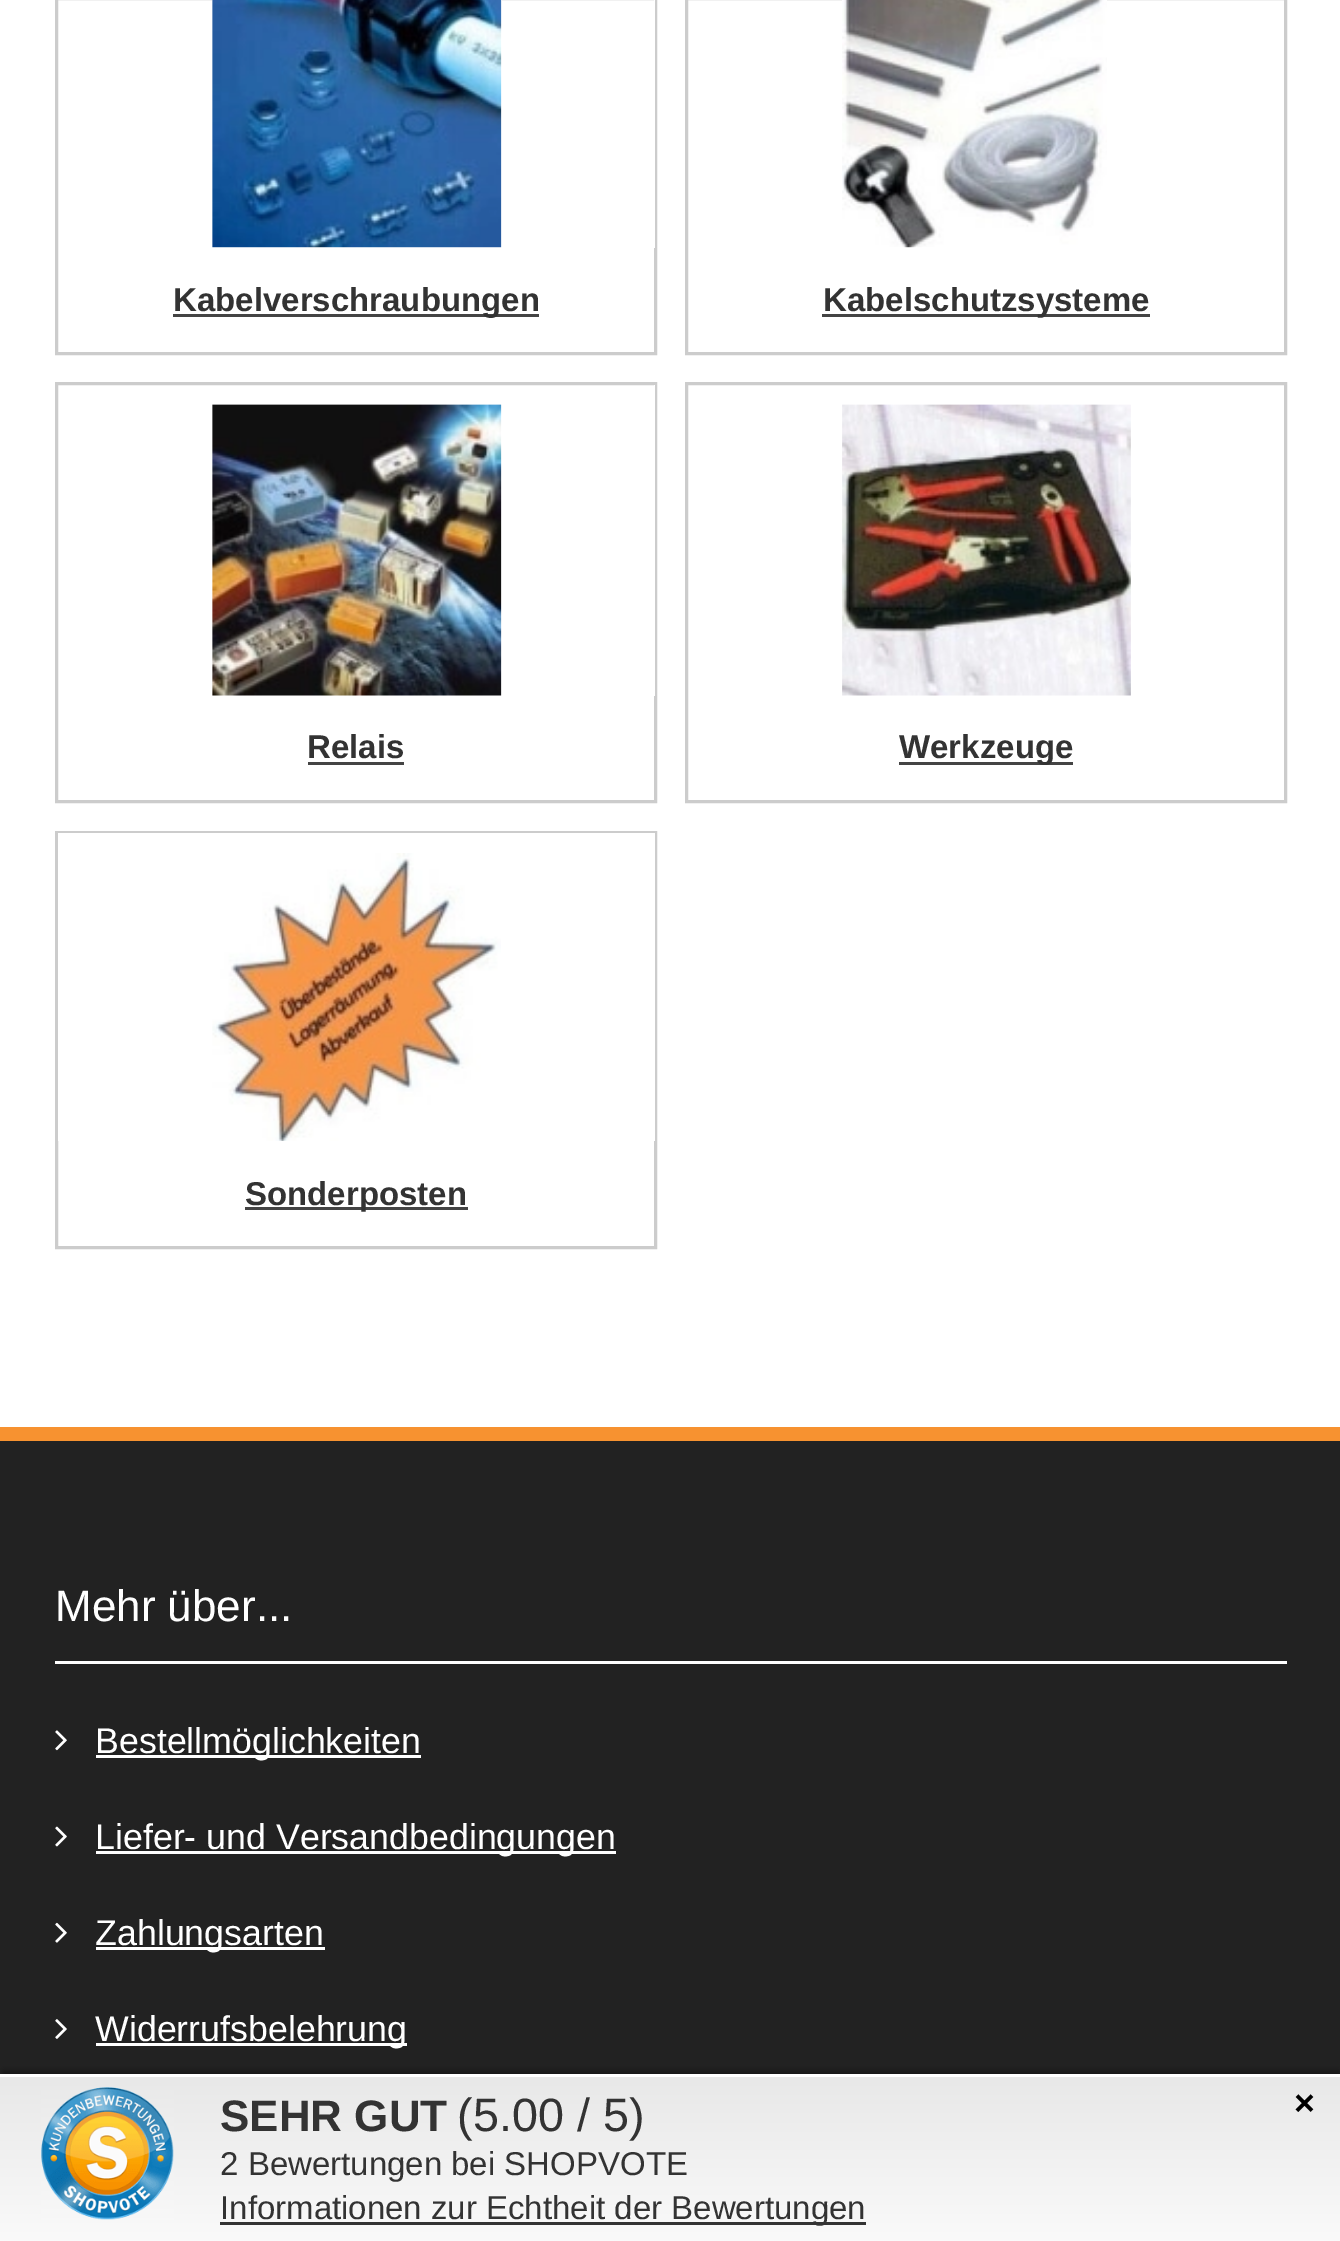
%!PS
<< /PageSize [1340 2241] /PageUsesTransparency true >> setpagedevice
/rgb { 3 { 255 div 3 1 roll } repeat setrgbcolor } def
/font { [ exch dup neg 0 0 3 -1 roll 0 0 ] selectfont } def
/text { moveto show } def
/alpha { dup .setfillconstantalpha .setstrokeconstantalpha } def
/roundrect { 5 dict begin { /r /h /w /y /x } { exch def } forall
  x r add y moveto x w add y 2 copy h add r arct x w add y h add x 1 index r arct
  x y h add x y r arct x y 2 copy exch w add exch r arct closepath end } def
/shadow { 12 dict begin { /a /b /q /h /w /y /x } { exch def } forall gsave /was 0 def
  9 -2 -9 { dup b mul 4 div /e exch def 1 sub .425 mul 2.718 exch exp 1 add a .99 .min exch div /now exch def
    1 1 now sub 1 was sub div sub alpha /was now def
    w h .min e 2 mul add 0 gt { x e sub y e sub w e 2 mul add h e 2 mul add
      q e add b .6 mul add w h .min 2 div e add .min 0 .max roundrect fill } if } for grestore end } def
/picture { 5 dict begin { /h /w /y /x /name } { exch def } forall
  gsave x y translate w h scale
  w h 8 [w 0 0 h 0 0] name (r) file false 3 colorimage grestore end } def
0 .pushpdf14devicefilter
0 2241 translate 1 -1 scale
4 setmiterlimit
255 255 255 rgb
0 0 1340 2241 rectfill
204 204 204 rgb
3 setlinewidth
56.5 -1.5 599 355 rectstroke
255 255 255 rgb
654 0 1 248 rectfill
(img_01.rgb) 212 0 290 248 picture
68 68 68 rgb
173 314 366 3 rectfill
204 204 204 rgb
686.5 -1.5 599 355 rectstroke
(img_02.rgb) 842 0 265 248 picture
68 68 68 rgb
822 314 328 3 rectfill
204 204 204 rgb
56.5 383.5 599 418 rectstroke
255 255 255 rgb
654 385 1 311 rectfill
(img_03.rgb) 212 404 290 292 picture
68 68 68 rgb
308 762 96 3 rectfill
204 204 204 rgb
686.5 383.5 599 418 rectstroke
(img_04.rgb) 842 404 289 292 picture
68 68 68 rgb
899 762 174 3 rectfill
204 204 204 rgb
56.5 832.5 599 415 rectstroke
255 255 255 rgb
58 833 597 308 rectfill
(img_05.rgb) 212 853 289 288 picture
68 68 68 rgb
245 1207 223 3 rectfill
34 34 34 rgb
0 1441 1340 633 rectfill
247 146 48 rgb
0 1427 1340 14 rectfill
255 255 255 rgb
55 1661 1232 3 rectfill
(img_06.rgb) 55 1730 12 21 picture
96 1755 325 3 rectfill
(img_07.rgb) 55 1826 12 21 picture
96 1851 520 3 rectfill
(img_08.rgb) 55 1922 12 21 picture
96 1947 229 3 rectfill
(img_09.rgb) 55 2019 12 20 picture
96 2043 311 3 rectfill
0 0 0 rgb
3 2071 1336 162 0 3 0.35 shadow
gsave 0 2077 moveto 1340 0 rlineto 0 164 rlineto -1340 0 rlineto closepath clip newpath
<< /ShadingType 2 /ColorSpace /DeviceRGB /Coords [671 2076 671 2241] /Extend [true true] /Function << /FunctionType 2 /Domain [0 1] /C0 [0.91 0.91 0.91] /C1 [0.98 0.98 0.98] /N 1 >> >> shfill grestore
255 255 255 rgb
0 2074 1340 3 rectfill
(img_10.rgb) 41 2087 133 133 picture
51 51 51 rgb
220 2222 646 3 rectfill
/LiberationSans-Bold 33 font
(Kabelverschraubungen) 173 311 text
(Kabelschutzsysteme) 823 311 text
(Relais) 307 758 text
(Werkzeuge) 899 758 text
(Sonderposten) 245 1205 text
/LiberationSans-Regular 44 font
255 255 255 rgb
(Mehr über...) 55 1621 text
/LiberationSans-Regular 35.75 font
(Bestellmöglichkeiten) 95 1753 text
(Liefer- und Versandbedingungen) 95 1849 text
(Zahlungsarten) 95 1945 text
(Widerrufsbelehrung) 95 2041 text
/LiberationSans-Bold 44 font
51 51 51 rgb
(SEHR GUT) 220 2131 text
/LiberationSans-Regular 46.75 font
(\(5.00 / 5\)) 457 2131 text
/LiberationSans-Regular 33 font
(2 Bewertungen bei SHOPVOTE) 220 2175 text
(Informationen zur Echtheit der Bewertungen) 220 2219 text
/LiberationSans-Bold 35.75 font
0 0 0 rgb
(×) 1294 2115 text
.poppdf14devicefilter showpage
